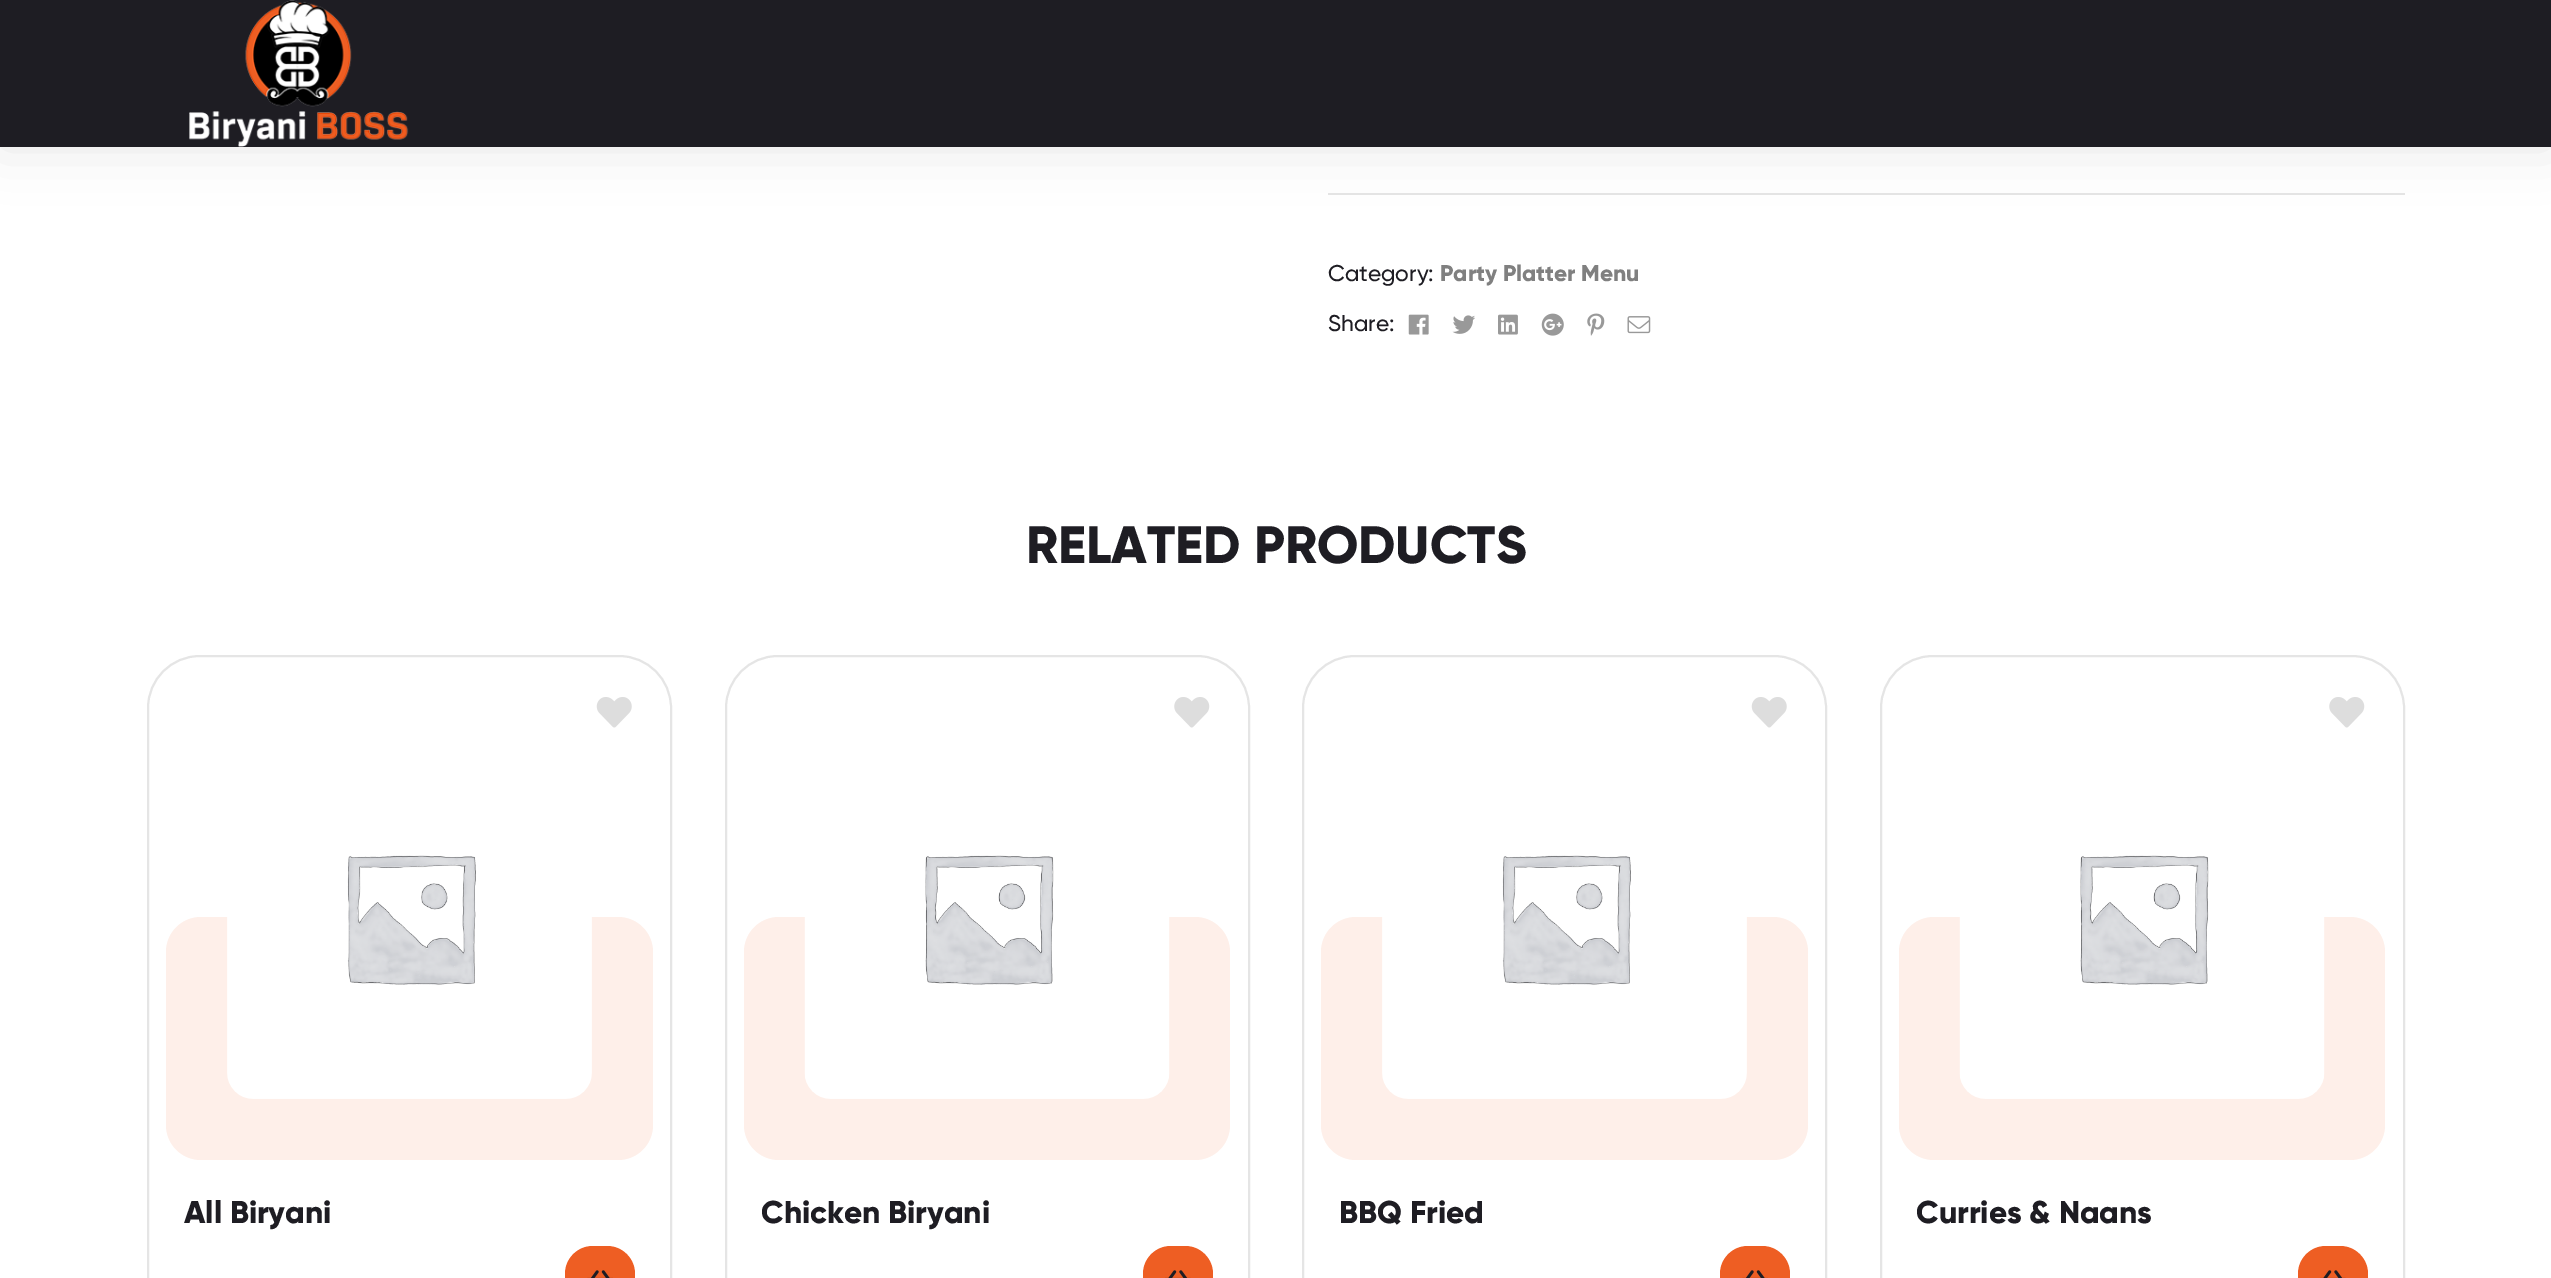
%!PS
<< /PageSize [2551 1278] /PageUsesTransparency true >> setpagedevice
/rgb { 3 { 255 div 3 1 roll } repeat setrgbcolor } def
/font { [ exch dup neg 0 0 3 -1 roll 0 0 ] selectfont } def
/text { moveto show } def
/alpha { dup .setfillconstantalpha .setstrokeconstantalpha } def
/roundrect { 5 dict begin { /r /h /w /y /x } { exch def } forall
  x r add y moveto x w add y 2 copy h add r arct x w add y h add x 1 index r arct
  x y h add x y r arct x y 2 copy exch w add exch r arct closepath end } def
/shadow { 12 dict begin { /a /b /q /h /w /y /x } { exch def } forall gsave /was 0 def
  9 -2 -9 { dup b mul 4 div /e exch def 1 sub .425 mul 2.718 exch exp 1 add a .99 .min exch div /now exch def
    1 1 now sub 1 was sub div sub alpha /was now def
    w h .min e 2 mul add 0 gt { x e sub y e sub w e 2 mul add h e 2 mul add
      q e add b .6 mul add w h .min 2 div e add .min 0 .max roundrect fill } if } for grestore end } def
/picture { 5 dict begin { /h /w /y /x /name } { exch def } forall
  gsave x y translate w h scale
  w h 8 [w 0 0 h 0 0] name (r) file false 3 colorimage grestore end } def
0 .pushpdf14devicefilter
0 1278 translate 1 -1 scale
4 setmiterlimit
255 255 255 rgb
0 0 2551 1278 rectfill
229 229 229 rgb
1328 193 1077 2 rectfill
0 0 0 rgb
0 0 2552 147 0 26 0.1 shadow
30 29 35 rgb
0 0 2551 147 rectfill
(img_01.rgb) 189 0 220 147 picture
(img_02.rgb) 1408 314 21 21 picture
(img_03.rgb) 1452 315 23 19 picture
(img_04.rgb) 1498 314 20 21 picture
(img_05.rgb) 1541 313 23 23 picture
(img_06.rgb) 1587 313 18 23 picture
(img_07.rgb) 1627 316 24 18 picture
229 229 229 rgb
2 setlinewidth
148 656 523 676 52 roundrect stroke
(img_08.rgb) 596 697 36 31 picture
254 239 233 rgb
166 917 487 243 35 roundrect fill
(img_09.rgb) 227 855 365 244 picture
238 94 35 rgb
565 1246 70 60 28 roundrect fill
(img_10.rgb) 587 1270 26 8 picture
229 229 229 rgb
726 656 523 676 52 roundrect stroke
(img_11.rgb) 1174 697 36 31 picture
254 239 233 rgb
744 917 486 243 35 roundrect fill
(img_12.rgb) 804 855 366 244 picture
238 94 35 rgb
1143 1246 70 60 28 roundrect fill
(img_13.rgb) 1165 1270 26 8 picture
229 229 229 rgb
1303 656 523 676 52 roundrect stroke
(img_08.rgb) 1751 697 36 31 picture
254 239 233 rgb
1321 917 487 243 35 roundrect fill
(img_14.rgb) 1382 855 365 244 picture
238 94 35 rgb
1720 1246 70 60 28 roundrect fill
(img_10.rgb) 1742 1270 26 8 picture
229 229 229 rgb
1881 656 523 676 52 roundrect stroke
(img_11.rgb) 2329 697 36 31 picture
254 239 233 rgb
1899 917 486 243 35 roundrect fill
(img_12.rgb) 1959 855 366 244 picture
238 94 35 rgb
2298 1246 70 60 28 roundrect fill
(img_13.rgb) 2320 1270 26 8 picture
/Gilroy-Medium 22.75 font
30 29 35 rgb
(Category:) 1328 281 text
/Gilroy-ExtraBold 22.75 font
128 128 128 rgb
(Party Platter Menu) 1440 281 text
/Gilroy-Medium 22.75 font
30 29 35 rgb
(Share:) 1328 331 text
/Gilroy-ExtraBold 52.5 font
(RELATED PRODUCTS) 1026 563 text
/Gilroy-ExtraBold 31.5 font
(All Biryani) 184 1223 text
(Chicken Biryani) 761 1223 text
(BBQ Fried) 1339 1223 text
(Curries & Naans) 1916 1223 text
.poppdf14devicefilter showpage
